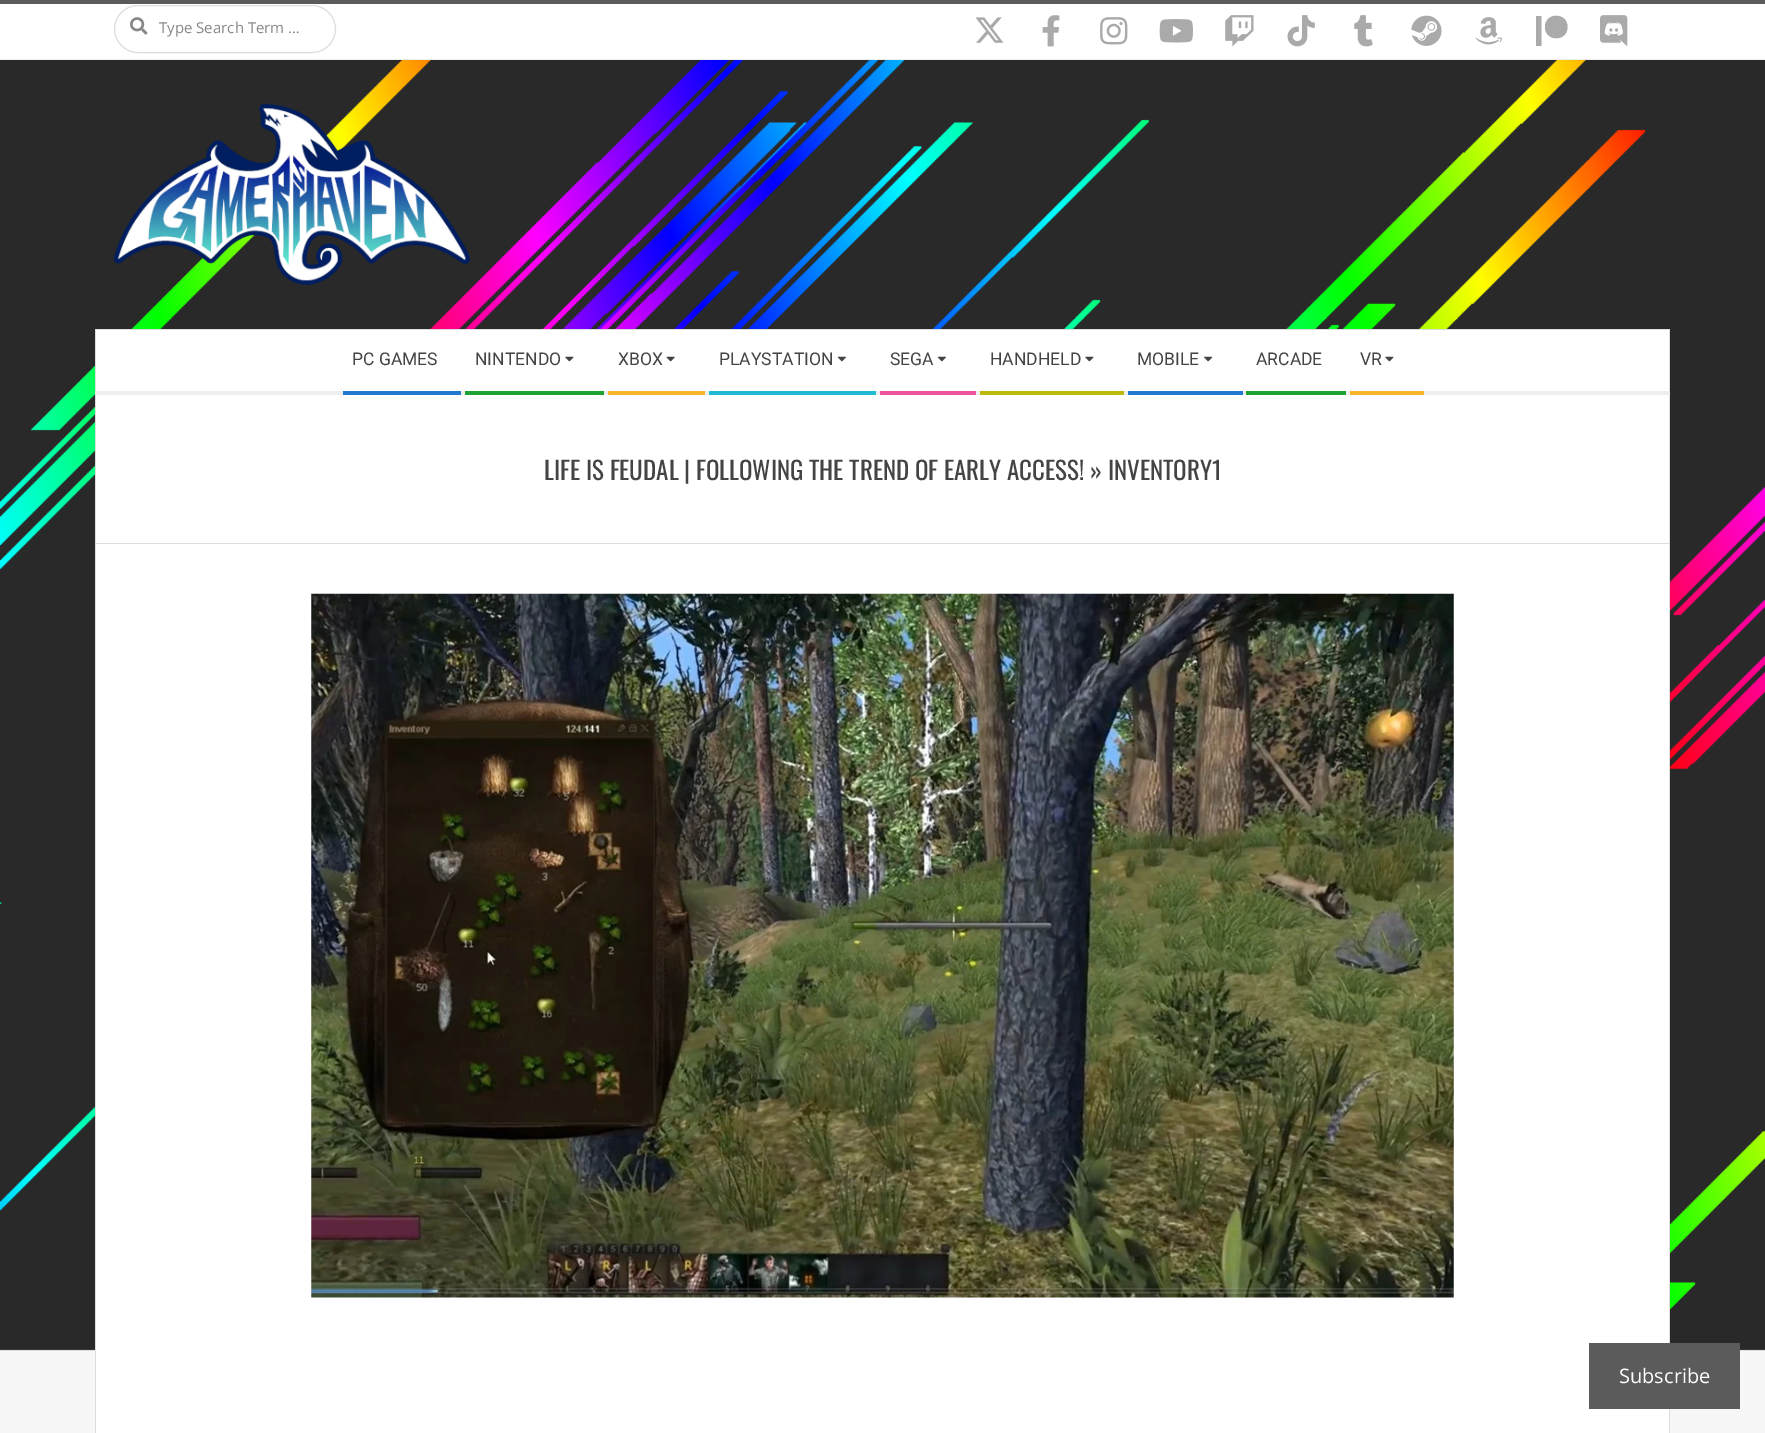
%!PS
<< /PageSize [1765 1433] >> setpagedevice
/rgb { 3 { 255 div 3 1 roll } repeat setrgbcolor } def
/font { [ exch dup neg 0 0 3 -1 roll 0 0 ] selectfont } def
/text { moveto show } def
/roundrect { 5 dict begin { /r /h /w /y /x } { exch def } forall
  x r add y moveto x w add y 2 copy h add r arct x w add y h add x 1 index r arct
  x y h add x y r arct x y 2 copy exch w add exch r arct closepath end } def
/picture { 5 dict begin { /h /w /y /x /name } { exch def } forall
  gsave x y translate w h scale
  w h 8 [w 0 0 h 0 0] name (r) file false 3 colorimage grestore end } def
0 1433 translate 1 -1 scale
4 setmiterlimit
247 247 247 rgb
0 0 1765 1433 rectfill
(img_01.rgb) 0 60 1765 1291 picture
91 91 91 rgb
0 0 1765 4 rectfill
255 255 255 rgb
0 4 1765 55 rectfill
238 238 238 rgb
0 59 1765 1 rectfill
221 221 221 rgb
114.5 5.5 221 47 23.5 roundrect stroke
(img_02.rgb) 130 17 18 18 picture
(img_03.rgb) 975 17 29 26 picture
(img_04.rgb) 1042 15 18 32 picture
(img_05.rgb) 1100 17 28 28 picture
(img_06.rgb) 1159 19 34 24 picture
(img_07.rgb) 1225 15 29 32 picture
(img_08.rgb) 1287 15 28 32 picture
(img_09.rgb) 1354 15 19 32 picture
(img_10.rgb) 1411 15 31 31 picture
(img_11.rgb) 1475 17 27 28 picture
170 170 170 rgb
1567.5 27 moveto 0 15 -22.5 15 -22.5 0 rcurveto 0 -15 22.5 -15 22.5 0 rcurveto closepath 1536 46 moveto 0 -30 rlineto 5.5 0 rlineto 0 30 rlineto closepath fill
(img_12.rgb) 1600 15 28 32 picture
221 221 221 rgb
95 329 1575 1 rectfill
(img_13.rgb) 113 103 357 182 picture
255 255 255 rgb
95 330 1575 65 rectfill
221 221 221 rgb
1670 330 moveto 0 65 rlineto -1 -4 rlineto 0 -61 rlineto closepath fill
238 238 238 rgb
1670 395 moveto -1575 0 rlineto 1 -4 rlineto 1573 0 rlineto closepath fill
221 221 221 rgb
95 395 moveto 0 -65 rlineto 1 0 rlineto 0 61 rlineto closepath fill
34 121 210 rgb
343 391 118 4 rectfill
(img_14.rgb) 565 356 9 6 picture
26 163 49 rgb
465 391 139 4 rectfill
(img_15.rgb) 666 356 9 6 picture
247 181 40 rgb
608 391 97 4 rectfill
(img_16.rgb) 837 356 9 6 picture
33 186 213 rgb
709 391 167 4 rectfill
(img_16.rgb) 937 356 9 6 picture
238 85 157 rgb
880 391 96 4 rectfill
(img_14.rgb) 1085 356 9 6 picture
188 186 8 rgb
980 391 144 4 rectfill
(img_17.rgb) 1204 356 9 6 picture
34 121 210 rgb
1128 391 115 4 rectfill
26 163 49 rgb
1246 391 100 4 rectfill
(img_14.rgb) 1385 356 9 6 picture
247 181 40 rgb
1350 391 74 4 rectfill
255 255 255 rgb
96 395 1573 1038 rectfill
221 221 221 rgb
1669 395 1 1038 rectfill
95 395 1 1038 rectfill
96 543 1573 1 rectfill
(img_18.rgb) 311 593 1143 705 picture
91 91 91 rgb
1589 1343 151 66 rectfill
/OpenSans-Regular 15 font
136 136 136 rgb
(Type Search Term …) 159 33 text
/Roboto-Regular 17.5 font
68 68 68 rgb
(PC GAMES) 352 365 text
(NINTENDO) 475 365 text
(XBOX) 618 365 text
(PLAYSTATION) 719 365 text
(SEGA) 890 365 text
(HANDHELD) 990 365 text
(MOBILE) 1137 365 text
(ARCADE) 1256 365 text
(VR) 1360 365 text
/Oswald-Regular 25 font
(LIFE IS FEUDAL | FOLLOWING THE TREND OF EARLY ACCESS! » INVENTORY1) 544 480 text
/OpenSans-Regular 20 font
255 255 255 rgb
(Subscribe) 1619 1383 text
showpage
